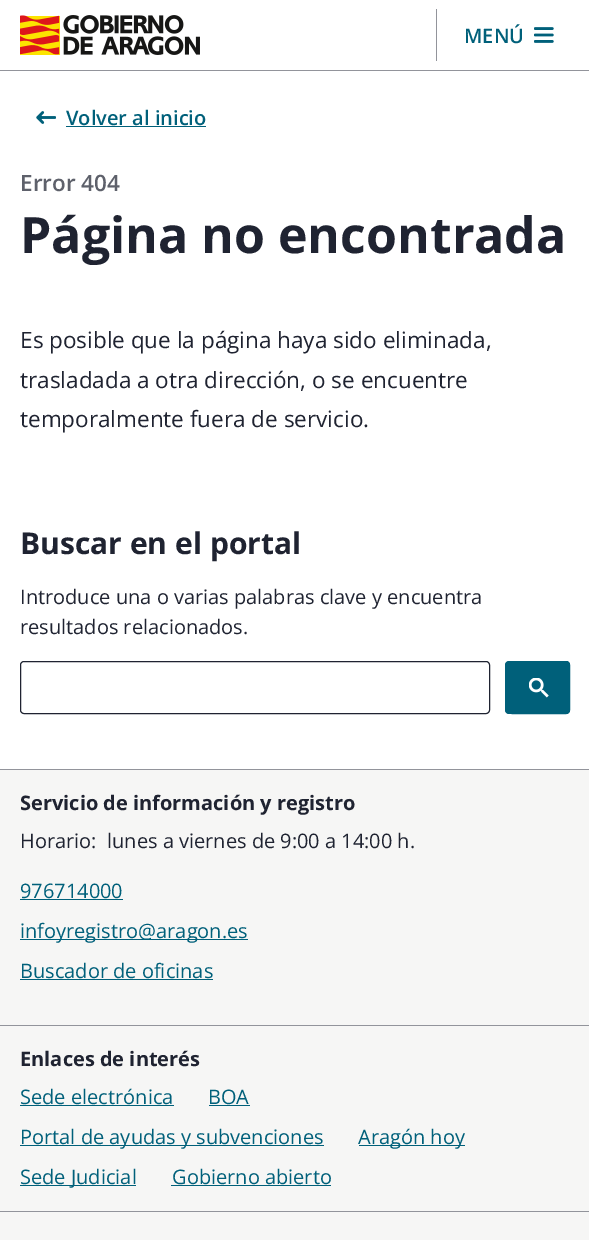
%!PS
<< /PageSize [589 1240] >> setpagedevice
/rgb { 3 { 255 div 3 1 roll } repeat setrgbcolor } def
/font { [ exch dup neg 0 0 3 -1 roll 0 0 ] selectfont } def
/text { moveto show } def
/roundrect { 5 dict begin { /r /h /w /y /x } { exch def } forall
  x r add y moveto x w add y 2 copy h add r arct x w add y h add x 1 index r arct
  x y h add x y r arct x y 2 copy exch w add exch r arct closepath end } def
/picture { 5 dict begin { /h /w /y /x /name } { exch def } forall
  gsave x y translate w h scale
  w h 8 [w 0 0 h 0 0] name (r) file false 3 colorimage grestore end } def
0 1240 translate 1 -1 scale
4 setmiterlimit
255 255 255 rgb
0 0 589 1240 rectfill
146 148 155 rgb
0 70 589 1 rectfill
(img_01.rgb) 20 15 180 40 picture
436 9 1 52 rectfill
(img_02.rgb) 534 27 20 16 picture
(img_03.rgb) 36 111 20 13 picture
0 96 122 rgb
66 126 140 1 rectfill
31 35 49 rgb
20.5 661.5 469 52 3.5 roundrect stroke
0 96 122 rgb
505 661 65 53 4 roundrect fill
508.5 661.5 61 52 3.5 roundrect gsave fill grestore
stroke
(img_04.rgb) 529 678 20 20 picture
246 246 245 rgb
0 770 589 255 rectfill
146 148 155 rgb
0 769 589 1 rectfill
0 96 122 rgb
20 899 103 1 rectfill
20 939 228 1 rectfill
20 979 193 1 rectfill
246 246 245 rgb
0 1026 589 185 rectfill
146 148 155 rgb
0 1025 589 1 rectfill
0 96 122 rgb
20 1105 154 1 rectfill
209 1105 41 1 rectfill
20 1145 304 1 rectfill
359 1145 106 1 rectfill
20 1185 116 1 rectfill
171 1185 160 1 rectfill
246 246 245 rgb
0 1212 589 28 rectfill
146 148 155 rgb
0 1211 589 1 rectfill
/OpenSans-SemiBold 20 font
0 96 122 rgb
(MENÚ) 464 43 text
(Volver al inicio) 66 125 text
/OpenSans-SemiBold 22.5 font
94 97 107 rgb
(Error 404) 20 191 text
/OpenSans-Bold 50 font
31 35 49 rgb
(Página no encontrada) 20 253 text
/OpenSans-Regular 22.5 font
(Es posible que la página haya sido eliminada,) 20 348 text
(trasladada a otra dirección, o se encuentre) 20 388 text
(temporalmente fuera de servicio.) 20 427 text
/OpenSans-Bold 30 font
(Buscar en el portal) 20 554 text
/OpenSans-Regular 20 font
(Introduce una o varias palabras clave y encuentra) 20 604 text
(resultados relacionados.) 20 634 text
/OpenSans-Bold 20 font
(Servicio de información y registro) 20 810 text
/OpenSans-Regular 20 font
(Horario:) 20 848 text
(lunes a viernes de 9:00 a 14:00 h.) 107 848 text
0 96 122 rgb
(976714000) 20 898 text
(infoyregistro@aragon.es) 20 938 text
(Buscador de oficinas) 20 978 text
/OpenSans-Bold 20 font
31 35 49 rgb
(Enlaces de interés) 20 1066 text
/OpenSans-Regular 20 font
0 96 122 rgb
(Sede electrónica) 20 1104 text
(BOA) 208 1104 text
(Portal de ayudas y subvenciones) 20 1144 text
(Aragón hoy) 358 1144 text
(Sede Judicial) 20 1184 text
(Gobierno abierto) 172 1184 text
showpage
